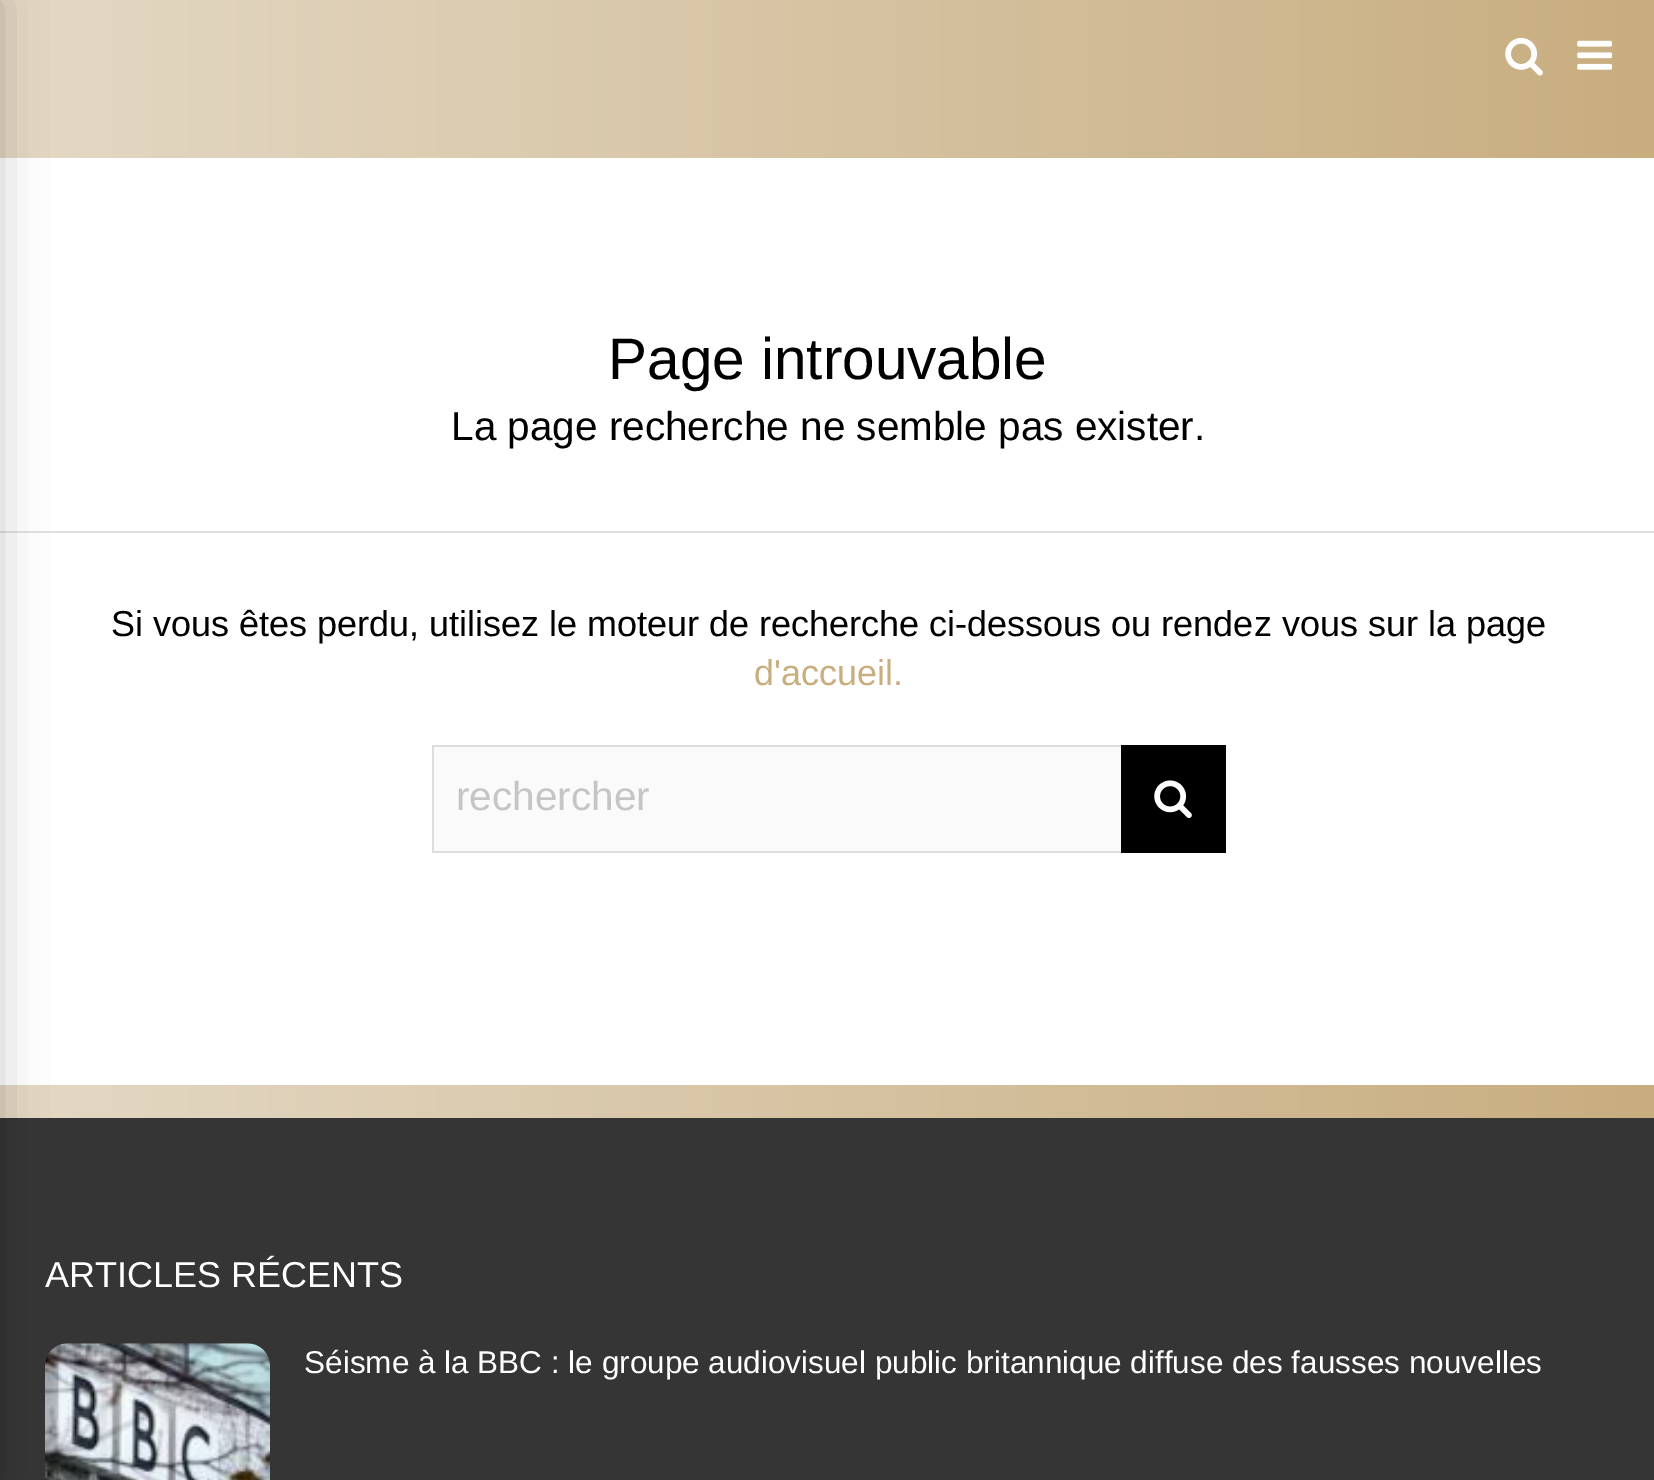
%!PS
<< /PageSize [1654 1480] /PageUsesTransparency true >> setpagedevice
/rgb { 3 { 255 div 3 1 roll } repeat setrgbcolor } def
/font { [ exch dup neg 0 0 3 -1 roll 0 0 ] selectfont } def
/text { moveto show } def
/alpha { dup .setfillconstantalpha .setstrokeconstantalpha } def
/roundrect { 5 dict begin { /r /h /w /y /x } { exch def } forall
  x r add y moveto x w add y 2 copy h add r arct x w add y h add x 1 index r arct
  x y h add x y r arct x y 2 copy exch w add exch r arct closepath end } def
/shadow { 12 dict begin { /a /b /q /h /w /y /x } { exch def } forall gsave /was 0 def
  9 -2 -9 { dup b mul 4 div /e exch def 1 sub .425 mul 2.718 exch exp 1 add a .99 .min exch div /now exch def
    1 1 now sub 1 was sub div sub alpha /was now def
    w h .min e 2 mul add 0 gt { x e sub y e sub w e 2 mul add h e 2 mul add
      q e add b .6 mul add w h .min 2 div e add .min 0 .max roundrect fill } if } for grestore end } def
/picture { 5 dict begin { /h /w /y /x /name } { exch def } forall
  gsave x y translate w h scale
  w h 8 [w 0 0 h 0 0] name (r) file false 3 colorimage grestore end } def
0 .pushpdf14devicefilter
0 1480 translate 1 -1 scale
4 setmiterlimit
255 255 255 rgb
0 0 1654 1480 rectfill
gsave 0 0 moveto 1654 0 rlineto 0 1118 rlineto -1654 0 rlineto closepath clip newpath
<< /ShadingType 2 /ColorSpace /DeviceRGB /Coords [0 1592 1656 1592] /Extend [true true] /Function << /FunctionType 2 /Domain [0 1] /C0 [0.894 0.851 0.773] /C1 [0.784 0.678 0.498] /N 1 >> >> shfill grestore
0 158 1654 927 rectfill
224 224 224 rgb
0 531 1654 2 rectfill
53 53 53 rgb
0 1118 1654 362 rectfill
(img_04.rgb) 45 1343 225 137 picture
0 0 0 rgb
-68 0 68 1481 0 22.5 0.2 shadow
(img_01.rgb) 1505 37 38 39 picture
(img_02.rgb) 1577 40 35 30 picture
250 250 250 rgb
434 747 687 104 rectfill
221 221 221 rgb
432 745 689 2 rectfill
432 851 689 2 rectfill
432 745 2 108 rectfill
0 0 0 rgb
1121 745 105 108 rectfill
(img_03.rgb) 1154 780 38 38 picture
/LiberationSans-Regular 58.5 font
(Page introuvable) 608 379 text
/LiberationSans-Regular 40.5 font
(La page recherche ne semble pas exister.) 451 440 text
/LiberationSans-Regular 36 font
(Si vous êtes perdu, utilisez le moteur de recherche ci-dessous ou rendez vous sur la page) 111 636 text
200 173 127 rgb
(d'accueil.) 754 685 text
/LiberationSans-Regular 40.5 font
197 197 197 rgb
(rechercher) 456 810 text
/LiberationSans-Regular 36 font
255 255 255 rgb
(ARTICLES RÉCENTS) 45 1287 text
/LiberationSans-Regular 31.5 font
(Séisme à la BBC : le groupe audiovisuel public britannique diffuse des fausses nouvelles) 304 1373 text
.poppdf14devicefilter showpage
